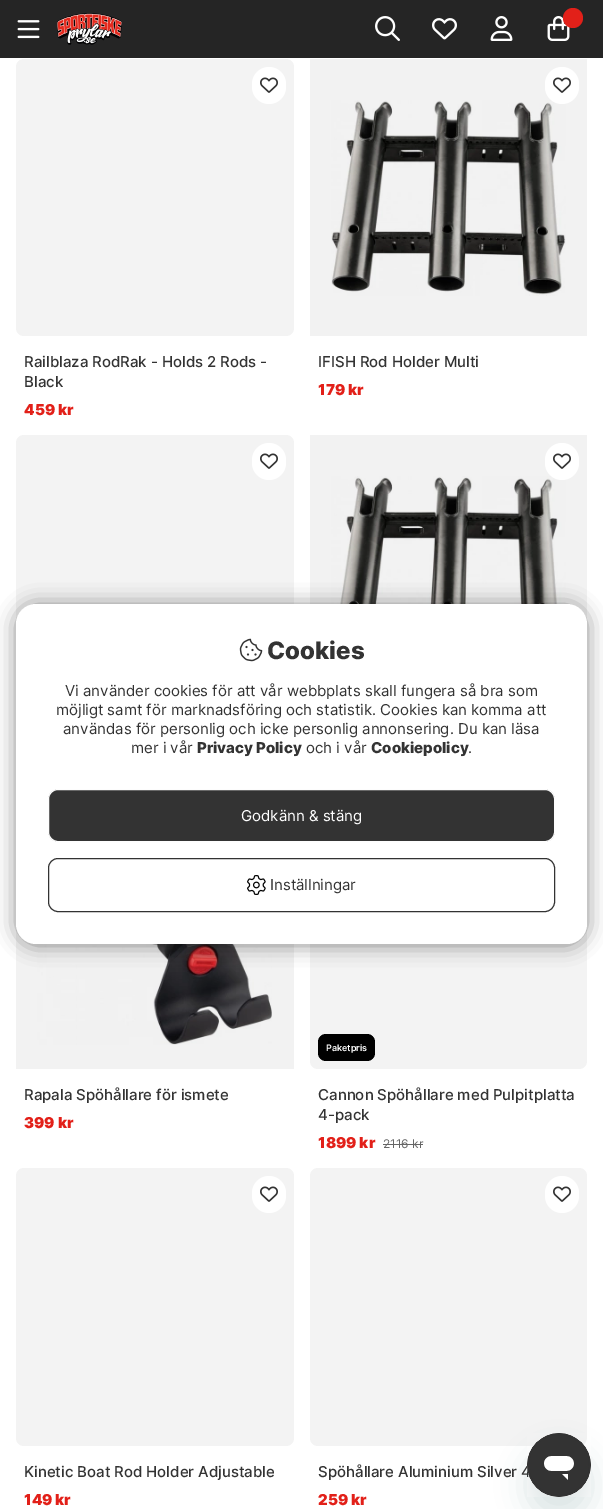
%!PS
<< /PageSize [603 1509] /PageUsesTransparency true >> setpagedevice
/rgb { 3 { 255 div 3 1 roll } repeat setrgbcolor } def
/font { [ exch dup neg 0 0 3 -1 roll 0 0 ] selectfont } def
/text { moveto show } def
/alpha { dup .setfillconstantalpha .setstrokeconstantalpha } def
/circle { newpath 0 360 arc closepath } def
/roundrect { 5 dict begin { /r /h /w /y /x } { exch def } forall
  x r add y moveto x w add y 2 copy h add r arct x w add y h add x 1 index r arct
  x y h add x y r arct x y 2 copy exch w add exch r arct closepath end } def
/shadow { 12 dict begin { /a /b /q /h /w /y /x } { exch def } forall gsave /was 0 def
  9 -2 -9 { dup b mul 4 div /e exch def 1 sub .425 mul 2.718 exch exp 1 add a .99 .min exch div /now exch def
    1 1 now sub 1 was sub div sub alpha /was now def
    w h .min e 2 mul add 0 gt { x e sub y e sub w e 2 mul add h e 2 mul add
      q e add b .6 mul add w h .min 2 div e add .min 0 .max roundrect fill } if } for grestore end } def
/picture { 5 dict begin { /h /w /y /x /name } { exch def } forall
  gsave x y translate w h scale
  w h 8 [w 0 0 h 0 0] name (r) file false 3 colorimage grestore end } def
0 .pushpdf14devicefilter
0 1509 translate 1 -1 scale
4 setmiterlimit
255 255 255 rgb
0 0 603 1509 rectfill
37 37 37 rgb
0 0 603 58 rectfill
(img_01.rgb) 17 20 23 19 picture
(img_02.rgb) 57 13 65 32 picture
(img_03.rgb) 375 16 25 25 picture
(img_04.rgb) 432 18 25 22 picture
(img_05.rgb) 490 16 23 25 picture
(img_06.rgb) 547 16 23 25 picture
226 32 25 rgb
573 18 10 circle fill
243 243 243 rgb
16 59 278 277 8 roundrect fill
255 255 255 rgb
252 67 34 37 17 roundrect fill
(img_07.rgb) 260 77 18 16 picture
(img_08.rgb) 331 100 235 196 picture
0.05 alpha
0 0 0 rgb
310 59 277 277 rectfill
1 alpha
255 255 255 rgb
545 67 34 37 17 roundrect fill
(img_07.rgb) 553 77 18 16 picture
243 243 243 rgb
16 435 278 278 8 roundrect fill
255 255 255 rgb
252 443 34 37 17 roundrect fill
(img_07.rgb) 260 453 18 16 picture
(img_09.rgb) 331 476 235 128 picture
0.05 alpha
0 0 0 rgb
310 435 277 189 rectfill
1 alpha
255 255 255 rgb
545 443 34 37 17 roundrect fill
(img_07.rgb) 553 453 18 16 picture
(img_10.rgb) 37 944 235 101 picture
0.05 alpha
0 0 0 rgb
16 924 278 145 rectfill
1 alpha
243 243 243 rgb
310 792 277 277 8 roundrect fill
0 0 0 rgb
318 1034 57 27 8 roundrect fill
102 102 102 rgb
383 1144 40 1 rectfill
243 243 243 rgb
16 1168 278 278 8 roundrect fill
255 255 255 rgb
252 1176 34 37 17 roundrect fill
(img_07.rgb) 260 1186 18 16 picture
243 243 243 rgb
310 1168 277 278 8 roundrect fill
255 255 255 rgb
545 1176 34 37 17 roundrect fill
(img_07.rgb) 553 1186 18 16 picture
0 0 0 rgb
16 605 571 340 20 10 0.44 shadow
255 255 255 rgb
16 604 571 340 20 roundrect fill
(img_11.rgb) 239 638 24 24 picture
51 51 51 rgb
48.5 789.5 506 52 9.5 roundrect gsave fill grestore
253 253 253 rgb
stroke
51 51 51 rgb
48.5 858.5 506 53 9.5 roundrect stroke
(img_12.rgb) 247 875 19 20 picture
23 73 77 rgb
527 1453 64 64 32 15 0.15 shadow
/Inter-Medium 15 font
51 51 51 rgb
(Railblaza RodRak - Holds 2 Rods -) 24 367 text
(Black) 24 387 text
/Inter-Black 15 font
226 32 25 rgb
(459 kr) 24 415 text
/Inter-Medium 15 font
51 51 51 rgb
(IFISH Rod Holder Multi) 318 367 text
/Inter-Black 15 font
226 32 25 rgb
(179 kr) 318 395 text
/Inter-Medium 15 font
51 51 51 rgb
(Rapala Spöhållare för ismete) 24 1100 text
/Inter-Black 15 font
226 32 25 rgb
(399 kr) 24 1128 text
/Inter-SemiBold 9 font
255 255 255 rgb
(Paketpris) 326 1051 text
/Inter-Medium 15 font
51 51 51 rgb
(Cannon Spöhållare med Pulpitplatta) 318 1100 text
(4-pack) 318 1120 text
/Inter-Black 15 font
226 32 25 rgb
(1899 kr) 318 1148 text
/Inter-Regular 12 font
102 102 102 rgb
(2116 kr) 383 1148 text
/Inter-Medium 15 font
51 51 51 rgb
(Kinetic Boat Rod Holder Adjustable) 24 1477 text
/Inter-Black 15 font
226 32 25 rgb
(149 kr) 24 1505 text
/Inter-Medium 15 font
51 51 51 rgb
(Spöhållare Aluminium Silver 4) 318 1477 text
/Inter-Black 15 font
226 32 25 rgb
(259 kr) 318 1505 text
/Inter-ExtraBold 24 font
51 51 51 rgb
(Cookies) 267 659 text
/Inter-Regular 15 font
(Vi använder cookies för att vår webbplats skall fungera så bra som) 65 696 text
(möjligt samt för marknadsföring och statistik. Cookies kan komma att) 56 715 text
(användas för personlig och icke personlig annonsering. Du kan läsa) 63 734 text
(mer i vår) 131 753 text
/Inter-ExtraBold 15 font
(Privacy Policy) 197 753 text
/Inter-Regular 15 font
(och i vår) 306 753 text
/Inter-ExtraBold 15 font
(Cookiepolicy) 371 753 text
/Inter-Regular 15 font
(.) 468 753 text
255 255 255 rgb
(Godkänn & stäng) 241 821 text
51 51 51 rgb
(Inställningar) 270 890 text
(img_13.rgb) 527 1433 64 64 picture
.poppdf14devicefilter showpage
